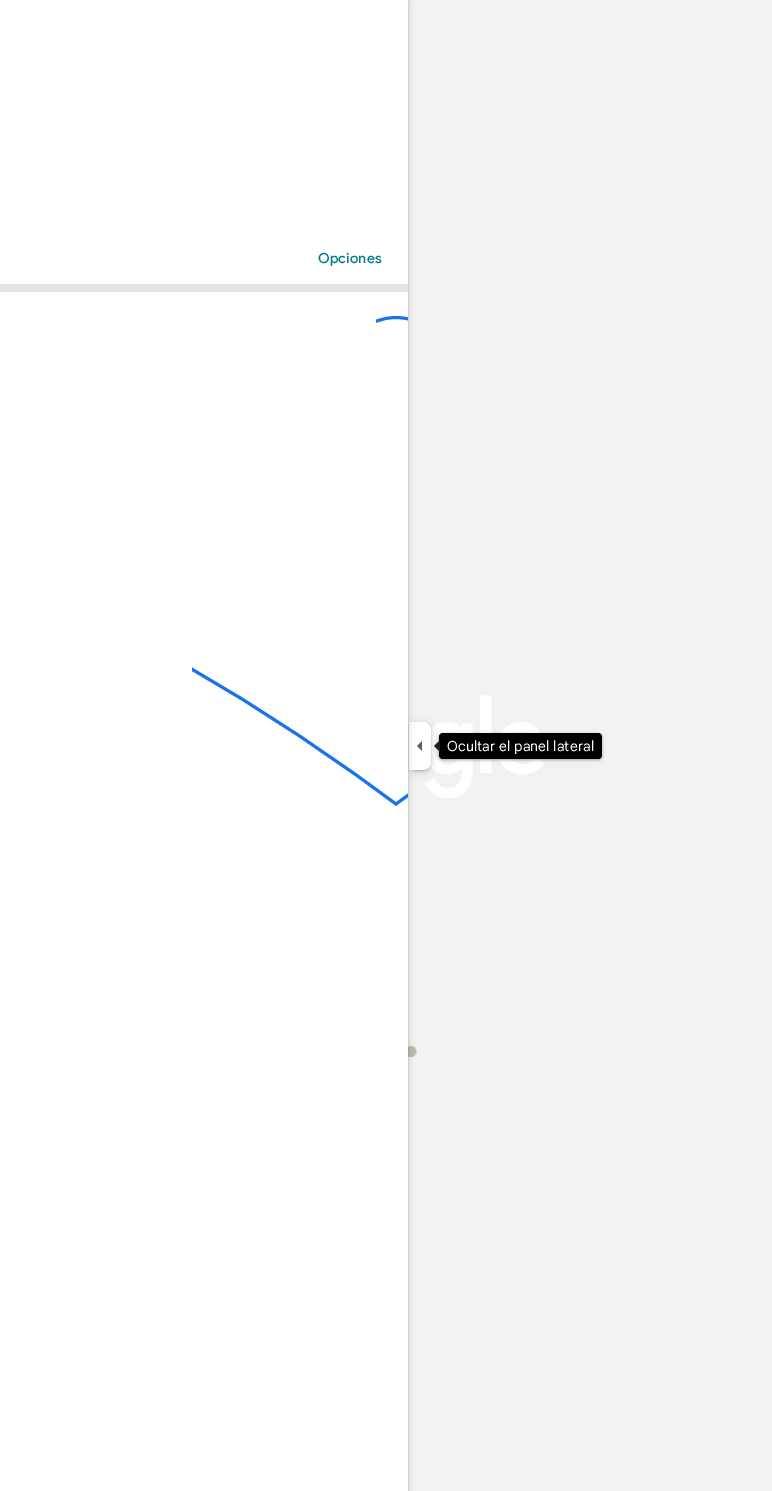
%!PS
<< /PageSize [772 1491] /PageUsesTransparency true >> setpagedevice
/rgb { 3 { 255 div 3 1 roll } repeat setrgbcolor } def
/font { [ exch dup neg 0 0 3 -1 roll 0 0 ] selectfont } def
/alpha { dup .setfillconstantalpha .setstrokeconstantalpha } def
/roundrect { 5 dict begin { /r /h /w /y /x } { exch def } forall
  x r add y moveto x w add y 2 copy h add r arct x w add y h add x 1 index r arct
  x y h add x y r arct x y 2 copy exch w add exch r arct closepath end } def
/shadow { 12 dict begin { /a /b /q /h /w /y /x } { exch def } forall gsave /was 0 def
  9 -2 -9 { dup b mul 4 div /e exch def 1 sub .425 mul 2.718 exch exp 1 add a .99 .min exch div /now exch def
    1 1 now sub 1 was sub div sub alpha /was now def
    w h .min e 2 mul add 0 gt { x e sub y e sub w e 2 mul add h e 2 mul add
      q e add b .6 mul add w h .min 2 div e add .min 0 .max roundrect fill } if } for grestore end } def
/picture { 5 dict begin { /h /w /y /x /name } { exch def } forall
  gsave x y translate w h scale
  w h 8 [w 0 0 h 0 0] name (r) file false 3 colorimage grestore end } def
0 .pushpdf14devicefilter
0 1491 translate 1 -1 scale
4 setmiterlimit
242 242 242 rgb
0 0 772 1491 rectfill
(img_01.rgb) 424 695 121 103 picture
60 64 67 rgb
406 722 27 52 10 3 0.15 shadow
408 723 23 48 8 1 0.3 shadow
255 255 255 rgb
408 722 moveto 15 0 rlineto 4.5 0 8 3.5 8 8 rcurveto 0 32 rlineto 0 4.5 -3.5 8 -8 8 rcurveto -15 0 rlineto closepath fill
227 227 227 rgb
408 722 1 48 rectfill
94 94 94 rgb
422 751 moveto -5 -5 rlineto 5 -5 rlineto closepath fill
(img_02.rgb) 408 1046 9 11 picture
60 64 67 rgb
-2 0 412 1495 0 3 0.15 shadow
0 1 408 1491 0 1 0.3 shadow
255 255 255 rgb
0 0 408 1491 rectfill
227 227 227 rgb
0 284 408 8 rectfill
gsave
376 316 32 1175 rectclip
26 115 232 rgb
3 setlinewidth
253 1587.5 moveto -38 -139.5 -59.5 -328.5 -59.5 -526 rcurveto 0 -197.5 21.5 -386.5 59.5 -526 rcurveto 38 -139.5 89.5 -218 143 -218 rcurveto 53.5 0 105 78.5 143 218 rcurveto 38 139.5 59.5 328.5 59.5 526 rcurveto 0 197.5 -21.5 386.5 -59.5 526 rcurveto stroke
grestore
gsave
192 316 204 1175 rectclip
26 115 232 rgb
3 setlinewidth
85 613.5 moveto 131.5 60.5 290 166 441 293 rcurveto 151.5 126.5 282.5 264.5 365 383.5 rcurveto 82.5 119 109.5 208.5 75 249.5 rcurveto -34.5 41.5 -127.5 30.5 -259 -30 rcurveto stroke
grestore
gsave
396 316 12 1175 rectclip
26 115 232 rgb
3 setlinewidth
85 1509.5 moveto -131.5 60.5 -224.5 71.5 -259 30 rcurveto -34.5 -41 -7.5 -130.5 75 -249.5 rcurveto 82.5 -119 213.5 -257 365 -383.5 rcurveto 151 -127 309.5 -232.5 441 -293 rcurveto stroke
grestore
60 64 67 rgb
438 733 165 28 5 1.5 0.15 shadow
439 734 163 26 4 1 0.3 shadow
0 0 0 rgb
439 733 163 26 4 roundrect fill
31 31 31 rgb
440 740 moveto 0 12 rlineto -6 -6 rlineto closepath fill
/GoogleSans-Medium 14 font
0 123 139 rgb
318 263 moveto 0.1 0 (Opciones) ashow
/GoogleSans-Regular 14 font
255 255 255 rgb
447 751 moveto 0.1 0 (Ocultar el panel lateral) ashow
.poppdf14devicefilter showpage
